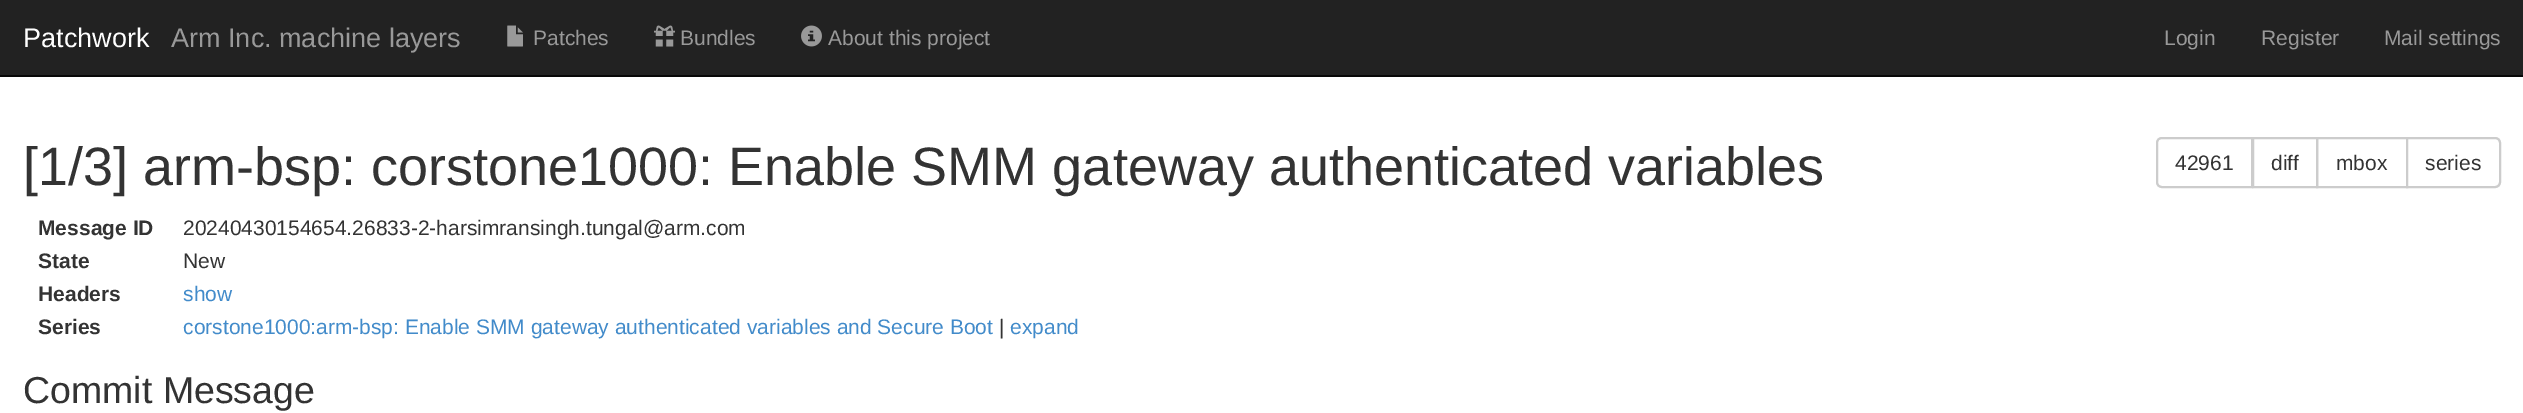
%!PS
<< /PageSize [2523 413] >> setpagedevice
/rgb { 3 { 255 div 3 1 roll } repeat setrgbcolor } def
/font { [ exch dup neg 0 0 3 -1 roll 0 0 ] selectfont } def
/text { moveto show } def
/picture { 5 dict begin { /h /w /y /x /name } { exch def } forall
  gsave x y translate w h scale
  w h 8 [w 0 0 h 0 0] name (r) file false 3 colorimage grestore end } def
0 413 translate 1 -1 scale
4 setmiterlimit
255 255 255 rgb
0 0 2523 413 rectfill
34 34 34 rgb
0 0 2523 75 rectfill
8 8 8 rgb
0 75 2523 2 rectfill
(img_01.rgb) 507 25 16 22 picture
(img_02.rgb) 654 25 21 22 picture
(img_03.rgb) 801 25 21 22 picture
204 204 204 rgb
2 setlinewidth
2162 138 moveto 90 0 rlineto 0 49 rlineto -90 0 rlineto -3 0 -5 -2 -5 -5 rcurveto 0 -39 rlineto 0 -3 2 -5 5 -5 rcurveto closepath stroke
2253 138 64 49 rectstroke
2317 138 90 49 rectstroke
255 255 255 rgb
2407 138 moveto 88 0 rlineto 3 0 5 2 5 5 rcurveto 0 39 rlineto 0 3 -2 5 -5 5 rcurveto -88 0 rlineto closepath gsave fill grestore
204 204 204 rgb
stroke
/LiberationSans-Regular 27 font
255 255 255 rgb
(Patchwork) 23 47 text
153 153 153 rgb
(Arm Inc. machine layers) 171 47 text
/LiberationSans-Regular 21 font
(Patches) 533 45 text
(Bundles) 680 45 text
(About this project) 828 45 text
(Login) 2164 45 text
(Register) 2261 45 text
(Mail settings) 2384 45 text
/LiberationSans-Regular 54 font
51 51 51 rgb
([1/3] arm-bsp: corstone1000: Enable SMM gateway authenticated variables) 23 185 text
/LiberationSans-Regular 21 font
(42961) 2175 170 text
(diff) 2271 170 text
(mbox) 2336 170 text
(series) 2425 170 text
/LiberationSans-Bold 21 font
(Message ID) 38 235 text
/LiberationSans-Regular 21 font
(20240430154654.26833-2-harsimransingh.tungal@arm.com) 183 235 text
/LiberationSans-Bold 21 font
(State) 38 268 text
/LiberationSans-Regular 21 font
(New) 183 268 text
/LiberationSans-Bold 21 font
(Headers) 38 301 text
/LiberationSans-Regular 21 font
66 139 202 rgb
(show) 183 301 text
/LiberationSans-Bold 21 font
51 51 51 rgb
(Series) 38 334 text
/LiberationSans-Regular 21 font
66 139 202 rgb
(corstone1000:arm-bsp: Enable SMM gateway authenticated variables and Secure Boot) 183 334 text
51 51 51 rgb
(|) 999 334 text
66 139 202 rgb
(expand) 1010 334 text
/LiberationSans-Regular 37.5 font
51 51 51 rgb
(Commit Message) 23 403 text
showpage
